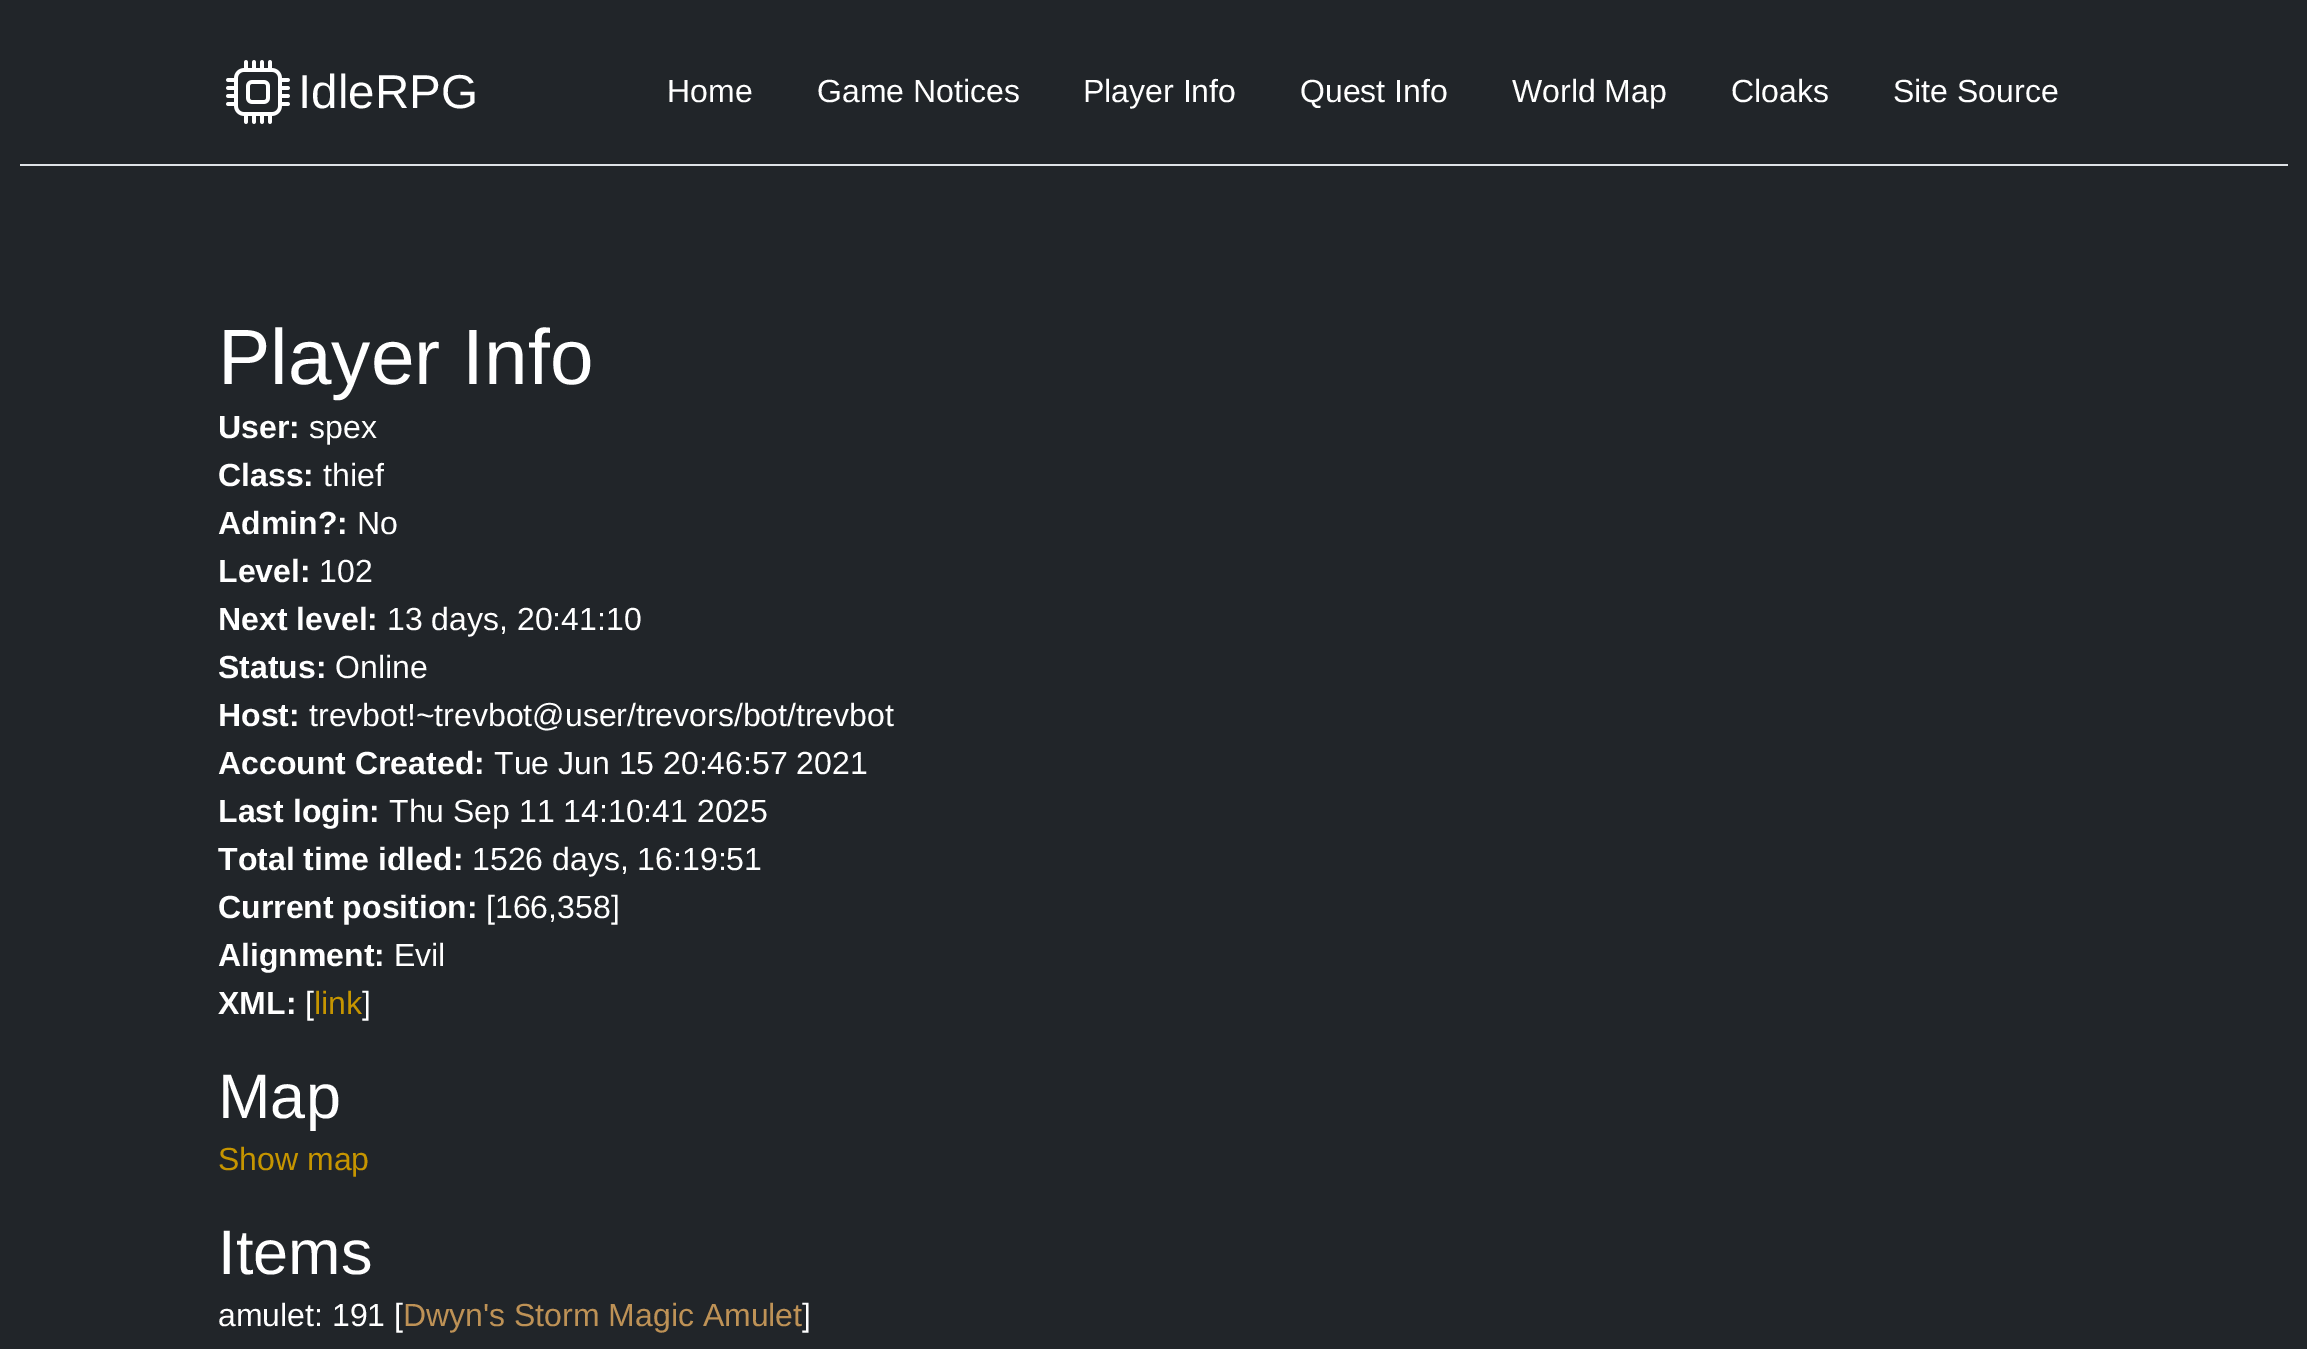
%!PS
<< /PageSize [2307 1349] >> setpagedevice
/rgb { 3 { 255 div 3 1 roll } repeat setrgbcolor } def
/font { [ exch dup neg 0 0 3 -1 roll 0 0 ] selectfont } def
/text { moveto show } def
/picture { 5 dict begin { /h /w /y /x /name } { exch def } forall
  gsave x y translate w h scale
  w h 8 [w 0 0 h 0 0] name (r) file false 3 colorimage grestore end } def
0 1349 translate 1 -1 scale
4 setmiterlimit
33 37 41 rgb
0 0 2307 1349 rectfill
222 226 230 rgb
20 164 2268 2 rectfill
(img_01.rgb) 226 60 64 64 picture
/LiberationSans-Regular 47.5 font
255 255 255 rgb
(IdleRPG) 298 108 text
/LiberationSans-Regular 32 font
(Home) 667 102 text
(Game Notices) 817 102 text
(Player Info) 1083 102 text
(Quest Info) 1300 102 text
(World Map) 1512 102 text
(Cloaks) 1731 102 text
(Site Source) 1893 102 text
/LiberationSans-Regular 78.5 font
(Player Info) 218 384 text
/LiberationSans-Bold 32 font
(User:) 218 438 text
/LiberationSans-Regular 32 font
(spex) 309 438 text
/LiberationSans-Bold 32 font
(Class:) 218 486 text
/LiberationSans-Regular 32 font
(thief) 323 486 text
/LiberationSans-Bold 32 font
(Admin?:) 218 534 text
/LiberationSans-Regular 32 font
(No) 357 534 text
/LiberationSans-Bold 32 font
(Level:) 218 582 text
/LiberationSans-Regular 32 font
(102) 319 582 text
/LiberationSans-Bold 32 font
(Next level:) 218 630 text
/LiberationSans-Regular 32 font
(13 days, 20:41:10) 387 630 text
/LiberationSans-Bold 32 font
(Status:) 218 678 text
/LiberationSans-Regular 32 font
(Online) 335 678 text
/LiberationSans-Bold 32 font
(Host:) 218 726 text
/LiberationSans-Regular 32 font
(trevbot!~trevbot@user/trevors/bot/trevbot) 309 726 text
/LiberationSans-Bold 32 font
(Account Created:) 218 774 text
/LiberationSans-Regular 32 font
(Tue Jun 15 20:46:57 2021) 494 774 text
/LiberationSans-Bold 32 font
(Last login:) 218 822 text
/LiberationSans-Regular 32 font
(Thu Sep 11 14:10:41 2025) 389 822 text
/LiberationSans-Bold 32 font
(Total time idled:) 218 870 text
/LiberationSans-Regular 32 font
(1526 days, 16:19:51) 472 870 text
/LiberationSans-Bold 32 font
(Current position:) 218 918 text
/LiberationSans-Regular 32 font
([166,358]) 486 918 text
/LiberationSans-Bold 32 font
(Alignment:) 218 966 text
/LiberationSans-Regular 32 font
(Evil) 394 966 text
/LiberationSans-Bold 32 font
(XML:) 218 1014 text
/LiberationSans-Regular 32 font
([) 305 1014 text
198 149 0 rgb
(link) 314 1014 text
255 255 255 rgb
(]) 362 1014 text
/LiberationSans-Regular 63 font
(Map) 218 1118 text
/LiberationSans-Regular 32 font
198 149 0 rgb
(Show map) 218 1170 text
/LiberationSans-Regular 63 font
255 255 255 rgb
(Items) 218 1274 text
/LiberationSans-Regular 32 font
(amulet: 191 [) 218 1326 text
190 146 86 rgb
(Dwyn's Storm Magic Amulet) 403 1326 text
255 255 255 rgb
(]) 802 1326 text
showpage
